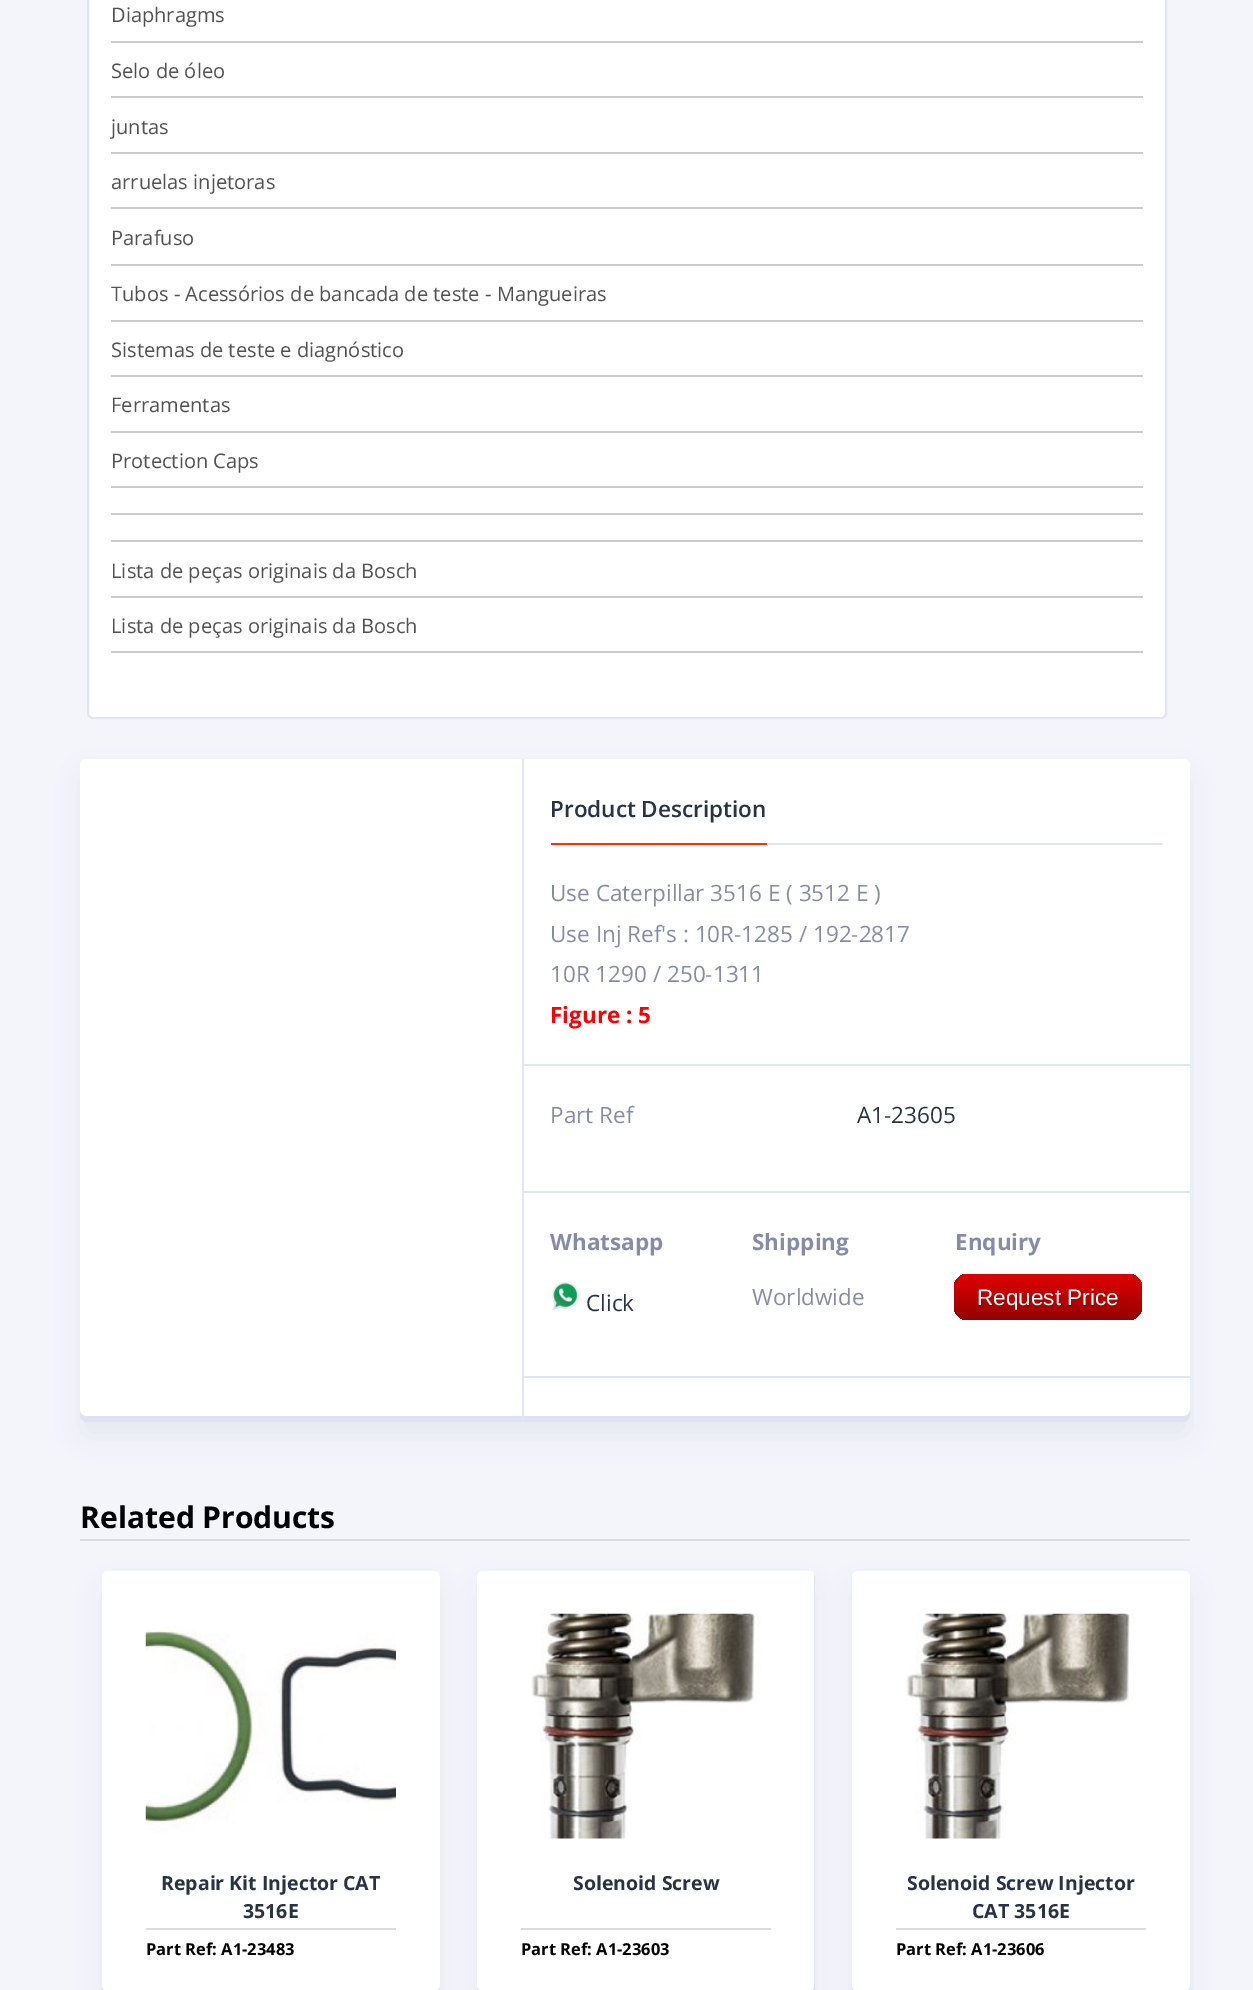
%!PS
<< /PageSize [1253 1990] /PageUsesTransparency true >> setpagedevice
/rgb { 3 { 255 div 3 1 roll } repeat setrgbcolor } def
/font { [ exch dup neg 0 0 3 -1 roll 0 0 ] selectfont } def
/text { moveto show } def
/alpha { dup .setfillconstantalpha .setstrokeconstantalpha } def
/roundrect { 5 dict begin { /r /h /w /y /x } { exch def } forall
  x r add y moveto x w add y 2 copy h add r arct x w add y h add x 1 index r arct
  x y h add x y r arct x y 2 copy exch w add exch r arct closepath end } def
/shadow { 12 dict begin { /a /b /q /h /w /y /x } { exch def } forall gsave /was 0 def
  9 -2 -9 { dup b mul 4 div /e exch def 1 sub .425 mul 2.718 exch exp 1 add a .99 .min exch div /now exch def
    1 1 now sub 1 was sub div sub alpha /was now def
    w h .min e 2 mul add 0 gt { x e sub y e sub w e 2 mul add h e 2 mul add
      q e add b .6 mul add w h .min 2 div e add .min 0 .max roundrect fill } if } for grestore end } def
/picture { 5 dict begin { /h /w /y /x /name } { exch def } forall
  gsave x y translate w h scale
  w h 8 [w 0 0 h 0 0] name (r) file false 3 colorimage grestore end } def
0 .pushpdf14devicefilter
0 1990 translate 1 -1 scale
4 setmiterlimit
244 245 251 rgb
0 0 1253 1990 rectfill
255 255 255 rgb
88 -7 1078 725 5 roundrect gsave fill grestore
224 228 246 rgb
2 setlinewidth
stroke
204 204 204 rgb
111 41 1032 2 rectfill
111 96 1032 2 rectfill
111 152 1032 2 rectfill
111 207 1032 2 rectfill
111 264 1032 2 rectfill
111 320 1032 2 rectfill
111 375 1032 2 rectfill
111 431 1032 2 rectfill
111 486 1032 2 rectfill
111 513 1032 2 rectfill
111 540 1032 2 rectfill
111 596 1032 2 rectfill
111 651 1032 2 rectfill
192 196 215 rgb
80 774 1110 663 6 15 0.25 shadow
255 255 255 rgb
80 759 1110 663 6 roundrect fill
223 226 240 rgb
80 1410 moveto 0 6 rlineto 0 3 3 6 6 6 rcurveto 1098 0 rlineto 3 0 6 -3 6 -6 rcurveto 0 -6 rlineto 0 3 -3 6 -6 6 rcurveto -1098 0 rlineto -4 0 -6 -3 -6 -6 rcurveto closepath fill
224 228 246 rgb
522 759 2 663 rectfill
524 1064 666 2 rectfill
767 843 396 2 rectfill
255 49 0 rgb
551 843 216 2 rectfill
224 228 246 rgb
524 1191 666 2 rectfill
524 1376 666 2 rectfill
(img_01.rgb) 551 1281 29 30 picture
gsave 954 1274 188 46 14 roundrect clip newpath
<< /ShadingType 2 /ColorSpace /DeviceRGB /Coords [1048 1274 1048 1320] /Extend [true true] /Function << /FunctionType 2 /Domain [0 1] /C0 [0.878 0 0] /C1 [0.58 0 0] /N 1 >> >> shfill grestore
221 221 221 rgb
80 1539 1110 2 rectfill
192 196 215 rgb
102 1586 338 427 6 15 0.25 shadow
255 255 255 rgb
102 1571 338 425 6 roundrect fill
223 226 240 rgb
102 1986 moveto 0 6 rlineto 0 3 3 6 6 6 rcurveto 326 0 rlineto 3 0 6 -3 6 -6 rcurveto 0 -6 rlineto 0 3 -3 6 -6 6 rcurveto -326 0 rlineto -3 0 -6 -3 -6 -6 rcurveto closepath fill
(img_02.rgb) 145 1626 251 207 picture
221 221 221 rgb
146 1928 250 2 rectfill
192 196 215 rgb
477 1586 338 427 6 15 0.25 shadow
255 255 255 rgb
477 1571 338 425 6 roundrect fill
223 226 240 rgb
477 1986 moveto 0 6 rlineto 0 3 3 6 6 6 rcurveto 326 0 rlineto 3 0 6 -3 6 -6 rcurveto 0 -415 rlineto 0 -1 0 -2 -1 -3 rcurveto 0 412 rlineto 0 3 -2 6 -6 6 rcurveto -325 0 rlineto -3 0 -6 -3 -6 -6 rcurveto closepath fill
(img_03.rgb) 531 1613 230 226 picture
221 221 221 rgb
521 1928 250 2 rectfill
192 196 215 rgb
852 1586 338 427 6 15 0.25 shadow
255 255 255 rgb
852 1571 338 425 6 roundrect fill
223 226 240 rgb
852 1986 moveto 0 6 rlineto 0 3 3 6 6 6 rcurveto 326 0 rlineto 3 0 6 -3 6 -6 rcurveto 0 -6 rlineto 0 3 -3 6 -6 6 rcurveto -326 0 rlineto -3 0 -6 -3 -6 -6 rcurveto closepath fill
(img_03.rgb) 906 1613 230 226 picture
221 221 221 rgb
896 1928 250 2 rectfill
/OpenSans-Regular 20.1 font
82 82 82 rgb
(Diaphragms) 111 22 text
(Selo de óleo) 111 78 text
(juntas) 111 134 text
(arruelas injetoras) 111 189 text
(Parafuso) 111 245 text
(Tubos - Acessórios de bancada de teste - Mangueiras) 111 301 text
(Sistemas de teste e diagnóstico) 111 357 text
(Ferramentas) 111 412 text
(Protection Caps) 111 468 text
(Lista de peças originais da Bosch) 111 578 text
(Lista de peças originais da Bosch) 111 633 text
/OpenSans-SemiBold 22.5 font
40 51 70 rgb
(Product Description) 550 817 text
/OpenSans-Regular 22.5 font
134 140 167 rgb
(Use Caterpillar 3516 E \( 3512 E \)) 550 901 text
(Use Inj Ref's : 10R-1285 / 192-2817) 550 942 text
(10R 1290 / 250-1311) 550 982 text
/OpenSans-Bold 22.5 font
255 0 0 rgb
(Figure : 5) 550 1023 text
/OpenSans-Regular 22.5 font
134 140 167 rgb
(Part Ref) 550 1123 text
40 51 70 rgb
(A1-23605) 857 1123 text
/OpenSans-Bold 22.5 font
134 140 167 rgb
(Whatsapp) 550 1250 text
/OpenSans-Regular 22.5 font
40 51 70 rgb
(Click) 586 1311 text
/OpenSans-Bold 22.5 font
134 140 167 rgb
(Shipping) 752 1250 text
/OpenSans-Regular 22.5 font
(Worldwide) 752 1305 text
/OpenSans-Bold 22.5 font
(Enquiry) 955 1250 text
/LiberationSans-Regular 22.5 font
255 255 255 rgb
(Request Price) 977 1305 text
/OpenSans-Bold 30 font
0 0 0 rgb
(Related Products) 80 1528 text
/OpenSans-Bold 19.5 font
40 51 70 rgb
(Repair Kit Injector CAT) 161 1890 text
(3516E) 243 1918 text
/OpenSans-Bold 16.5 font
0 0 0 rgb
(Part Ref: A1-23483) 146 1955 text
/OpenSans-Bold 19.5 font
40 51 70 rgb
(Solenoid Screw) 573 1890 text
/OpenSans-Bold 16.5 font
0 0 0 rgb
(Part Ref: A1-23603) 521 1955 text
/OpenSans-Bold 19.5 font
40 51 70 rgb
(Solenoid Screw Injector) 907 1890 text
(CAT 3516E) 972 1918 text
/OpenSans-Bold 16.5 font
0 0 0 rgb
(Part Ref: A1-23606) 896 1955 text
.poppdf14devicefilter showpage
